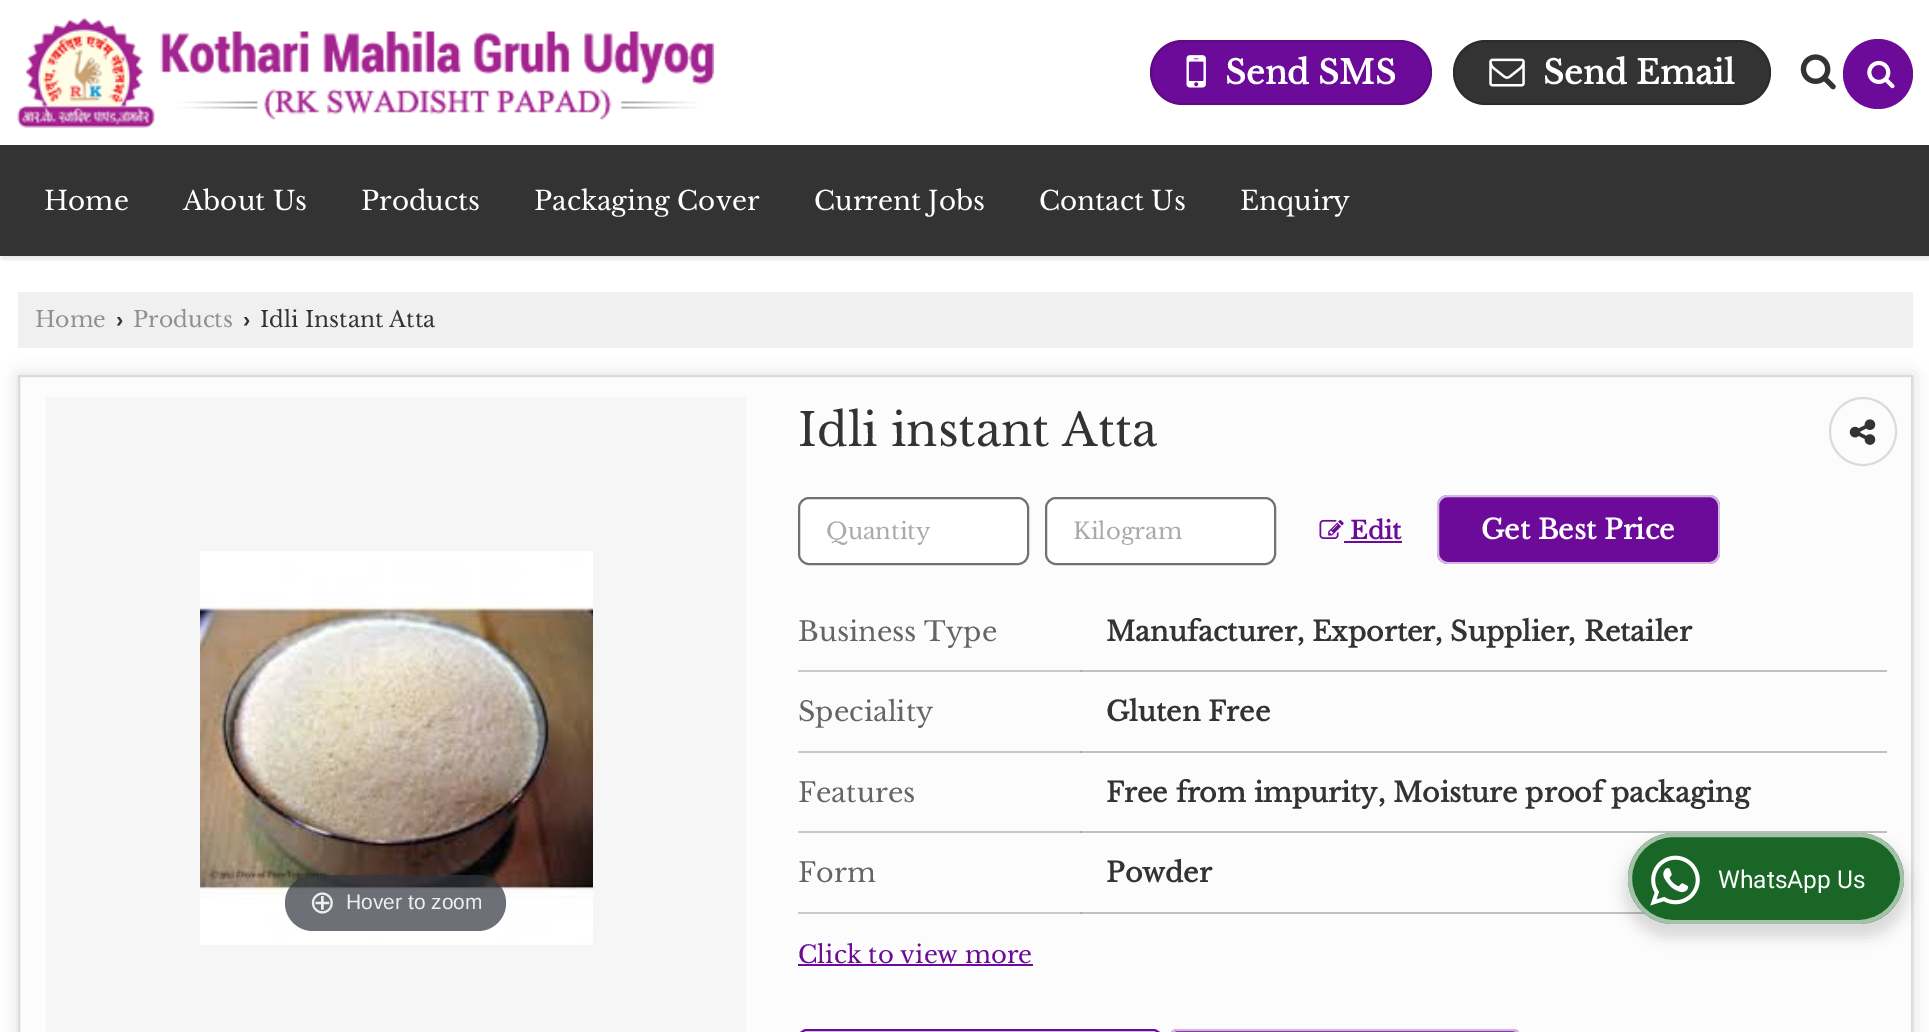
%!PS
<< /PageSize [1929 1032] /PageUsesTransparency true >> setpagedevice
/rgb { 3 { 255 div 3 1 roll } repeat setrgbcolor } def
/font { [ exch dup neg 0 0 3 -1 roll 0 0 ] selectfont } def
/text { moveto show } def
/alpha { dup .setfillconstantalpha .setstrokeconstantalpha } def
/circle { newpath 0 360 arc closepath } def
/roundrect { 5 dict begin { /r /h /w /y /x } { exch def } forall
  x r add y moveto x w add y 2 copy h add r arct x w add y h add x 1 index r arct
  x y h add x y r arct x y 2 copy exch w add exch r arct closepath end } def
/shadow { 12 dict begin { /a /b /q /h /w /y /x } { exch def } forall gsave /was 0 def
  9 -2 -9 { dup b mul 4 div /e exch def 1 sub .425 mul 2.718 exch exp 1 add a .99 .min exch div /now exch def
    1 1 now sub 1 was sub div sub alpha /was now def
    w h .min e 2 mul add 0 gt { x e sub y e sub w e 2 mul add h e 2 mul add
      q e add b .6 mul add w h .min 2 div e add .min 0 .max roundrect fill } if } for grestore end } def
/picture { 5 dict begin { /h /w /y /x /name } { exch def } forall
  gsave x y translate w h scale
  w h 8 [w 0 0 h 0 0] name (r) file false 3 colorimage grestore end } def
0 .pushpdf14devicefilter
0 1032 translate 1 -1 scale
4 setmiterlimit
255 255 255 rgb
0 0 1929 1032 rectfill
gsave
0 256 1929 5 rectclip
0 0 0 rgb
2 4 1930 255 0 2.5 0.1 shadow
grestore
(img_01.rgb) 17 17 697 111 picture
108 11 153 rgb
1150 40 282 65 32.5 roundrect fill
0.13 alpha
0 0 0 rgb
2 setlinewidth
1151 41 280 63 31.5 roundrect stroke
1 alpha
(img_02.rgb) 1186 55 20 33 picture
51 51 51 rgb
1453 40 318 65 32.5 roundrect fill
0.13 alpha
0 0 0 rgb
1454 41 316 63 31.5 roundrect stroke
1 alpha
(img_03.rgb) 1489 58 36 29 picture
(img_04.rgb) 1800 54 36 36 picture
108 11 153 rgb
1878 74 35 circle fill
(img_05.rgb) 1867 60 28 29 picture
51 51 51 rgb
0 145 1929 111 rectfill
240 240 240 rgb
18 292 1895 56 rectfill
204 204 204 rgb
18 375 1895 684 0 9 0.67 shadow
252 252 252 rgb
19 376 moveto 1893 0 rlineto 0 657 rlineto -1893 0 rlineto closepath gsave fill grestore
219 219 219 rgb
stroke
246 246 246 rgb
46 397 700 635 rectfill
(img_06.rgb) 200 551 393 394 picture
0.7 alpha
49 51 61 rgb
285 875 221 56 28 roundrect fill
1 alpha
219 219 219 rgb
1830 398 66 67 33 roundrect stroke
(img_07.rgb) 1849 419 27 26 picture
255 255 255 rgb
799 498 229 66 10 roundrect gsave fill grestore
113 113 113 rgb
stroke
255 255 255 rgb
1046 498 229 66 10 roundrect gsave fill grestore
113 113 113 rgb
stroke
(img_08.rgb) 1319 519 25 20 picture
108 11 153 rgb
1344 541 58 2 rectfill
1437 495 283 69 11 roundrect fill
0.7 alpha
255 255 255 rgb
1438 496 281 67 10 roundrect stroke
1 alpha
202 202 202 rgb
798 670 284 2 rectfill
193 193 193 rgb
1080 670 807 2 rectfill
172 172 172 rgb
1080 670 2 2 rectfill
202 202 202 rgb
798 751 284 2 rectfill
193 193 193 rgb
1080 751 807 2 rectfill
172 172 172 rgb
1080 751 2 2 rectfill
202 202 202 rgb
798 831 284 2 rectfill
193 193 193 rgb
1080 831 807 2 rectfill
172 172 172 rgb
1080 831 2 2 rectfill
202 202 202 rgb
798 912 284 2 rectfill
193 193 193 rgb
1080 912 565 2 rectfill
172 172 172 rgb
1080 912 2 2 rectfill
108 11 153 rgb
798 964 235 2 rectfill
799 1030 362 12 8 roundrect stroke
1169 1029 352 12 9 roundrect fill
0.7 alpha
255 255 255 rgb
1170 1030 350 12 8 roundrect stroke
1 alpha
0 0 0 rgb
1624 840 284 98 49 7 0.14 shadow
25 102 38 rgb
1628 833 276 91 45.5 roundrect fill
0.6 alpha
255 255 255 rgb
4 setlinewidth
1630 835 272 87 43.5 roundrect stroke
1 alpha
(img_09.rgb) 1650 855 50 51 picture
/LibreBaskerville-Bold 32.5 font
(Send SMS) 1225 84 text
(Send Email) 1543 84 text
/LibreBaskerville-Regular 26.25 font
(Home) 44 210 text
(About Us) 183 210 text
(Products) 361 210 text
(Packaging Cover) 534 210 text
(Current Jobs) 814 210 text
(Contact Us) 1039 210 text
(Enquiry) 1240 210 text
/LibreBaskerville-Regular 22 font
144 144 144 rgb
(Home) 35 327 text
/LiberationSans-Bold 22 font
51 51 51 rgb
(›) 116 327 text
/LibreBaskerville-Regular 22 font
144 144 144 rgb
(Products) 133 327 text
/LiberationSans-Bold 22 font
51 51 51 rgb
(›) 243 327 text
/LibreBaskerville-Regular 22 font
(Idli Instant Atta) 260 327 text
/DejaVuSans-Regular 32 font
238 238 238 rgb
(⊕) 309 913 text
/LiberationSans-Regular 21 font
(Hover to zoom) 346 909 text
/LibreBaskerville-Regular 45.5 font
51 51 51 rgb
(Idli instant Atta) 798 446 text
/LibreBaskerville-Regular 22.75 font
170 170 170 rgb
(Quantity) 826 539 text
(Kilogram) 1073 539 text
/LibreBaskerville-Bold 24.25 font
108 11 153 rgb
(Edit) 1350 539 text
/LibreBaskerville-Bold 26.95 font
255 255 255 rgb
(Get Best Price) 1481 539 text
/LibreBaskerville-Regular 26.95 font
101 101 101 rgb
(Business Type) 798 641 text
/LibreBaskerville-Bold 26.95 font
51 51 51 rgb
(Manufacturer, Exporter, Supplier, Retailer) 1106 641 text
/LibreBaskerville-Regular 26.95 font
101 101 101 rgb
(Speciality) 798 721 text
/LibreBaskerville-Bold 26.95 font
51 51 51 rgb
(Gluten Free) 1106 721 text
/LibreBaskerville-Regular 26.95 font
101 101 101 rgb
(Features) 798 802 text
/LibreBaskerville-Bold 26.95 font
51 51 51 rgb
(Free from impurity, Moisture proof packaging) 1106 802 text
/LibreBaskerville-Regular 26.95 font
101 101 101 rgb
(Form) 798 882 text
/LibreBaskerville-Bold 26.95 font
51 51 51 rgb
(Powder) 1106 882 text
/LibreBaskerville-Regular 24.25 font
108 11 153 rgb
(Click to view more) 798 963 text
/Roboto-Regular 24.5 font
255 255 255 rgb
(WhatsApp Us) 1718 888 text
.poppdf14devicefilter showpage
